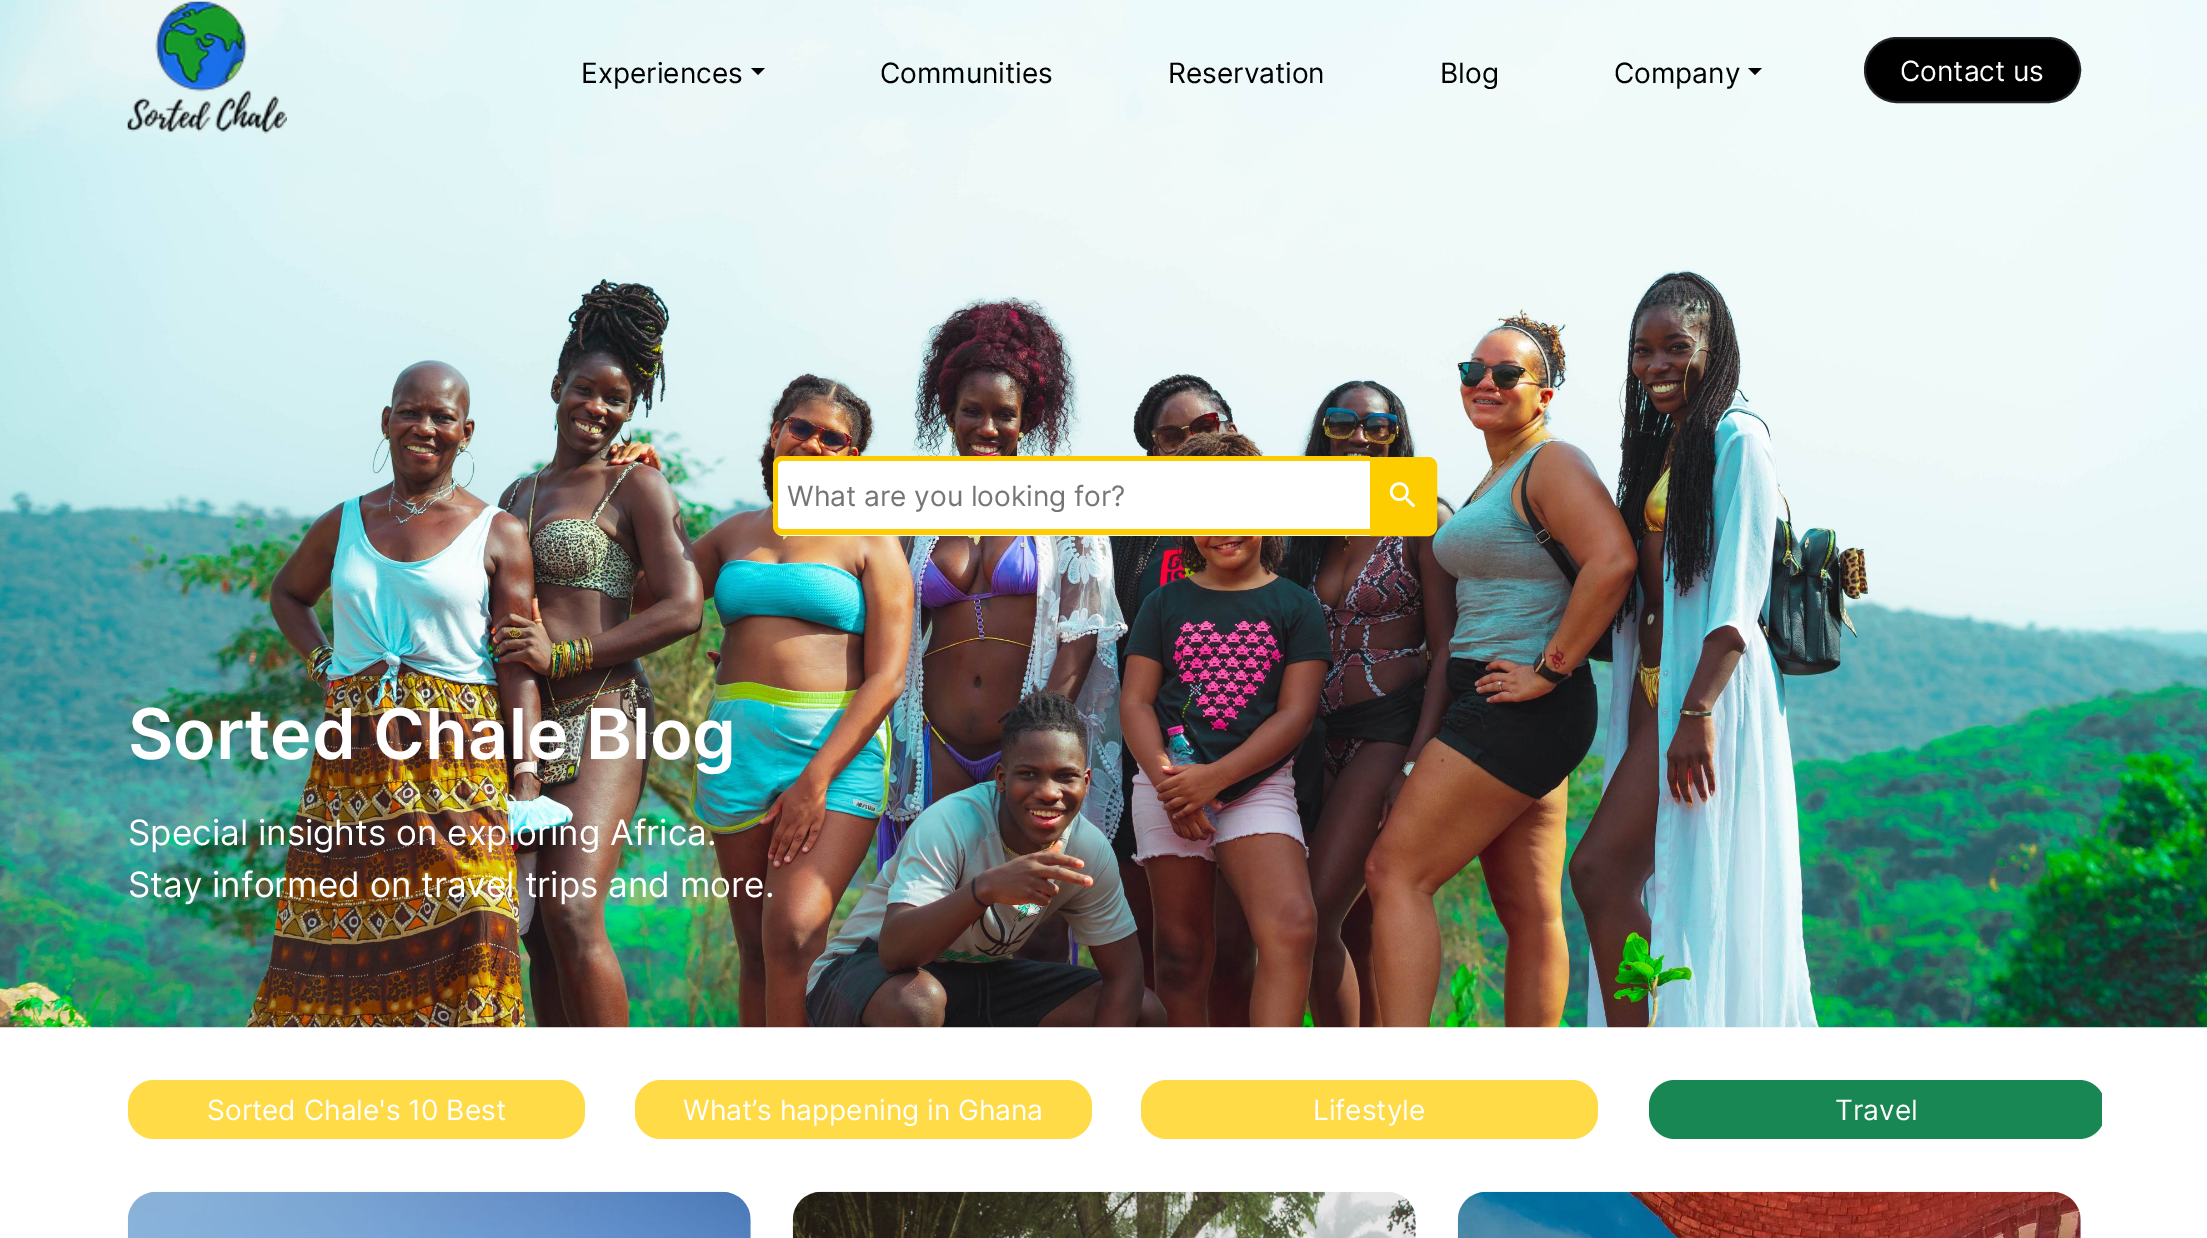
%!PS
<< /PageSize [2207 1238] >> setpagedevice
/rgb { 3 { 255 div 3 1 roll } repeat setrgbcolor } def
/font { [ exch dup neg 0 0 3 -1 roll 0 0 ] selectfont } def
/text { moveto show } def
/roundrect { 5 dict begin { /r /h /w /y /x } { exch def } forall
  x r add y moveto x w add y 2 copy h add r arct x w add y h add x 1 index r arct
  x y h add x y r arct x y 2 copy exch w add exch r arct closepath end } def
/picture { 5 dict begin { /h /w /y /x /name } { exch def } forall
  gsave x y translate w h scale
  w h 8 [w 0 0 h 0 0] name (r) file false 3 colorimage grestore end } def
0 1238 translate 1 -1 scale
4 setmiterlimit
255 255 255 rgb
0 0 2207 1238 rectfill
(img_01.rgb) 0 0 2207 1028 picture
(img_02.rgb) 127 1 160 133 picture
0 0 0 rgb
751 68 moveto 14 0 rlineto -7 7 rlineto closepath fill
1748 68 moveto 14 0 rlineto -7 7 rlineto closepath fill
1865 38 215 64 32 roundrect gsave fill grestore
33 37 41 rgb
2 setlinewidth
stroke
255 255 255 rgb
783 457 moveto 587 0 rlineto 0 79 rlineto -587 0 rlineto -5 0 -9 -4 -9 -9 rcurveto 0 -61 rlineto 0 -5 4 -9 9 -9 rcurveto closepath fill
254 205 0 rgb
782 456 moveto 588 0 rlineto 0 79 rlineto -588 0 rlineto -5 0 -9 -4 -9 -9 rcurveto 0 -61 rlineto 0 -5 4 -9 9 -9 rcurveto closepath 782 461 moveto 588 0 rlineto 0 68 rlineto -588 0 rlineto -2 0 -4 -1 -4 -3 rcurveto 0 -61 rlineto 0 -2 2 -4 4 -4 rcurveto closepath eofill
1371 458 moveto 57 0 rlineto 4.5 0 8 3.5 8 8 rcurveto 0 61 rlineto 0 4.5 -3.5 8 -8 8 rcurveto -57 0 rlineto closepath gsave fill grestore
stroke
(img_03.rgb) 1389 482 27 26 picture
255 219 71 rgb
128 1080 457 59 26 roundrect fill
635 1080 457 59 26 roundrect fill
1141 1080 457 59 26 roundrect fill
gsave
107 1080 1995 59 rectclip
25 135 84 rgb
1649 1080 456 59 26 roundrect fill
grestore
(img_04.rgb) 127 1191 624 47 picture
(img_05.rgb) 792 1191 624 47 picture
(img_06.rgb) 1457 1191 624 47 picture
/Inter-Regular 28 font
0 0 0 rgb
(Experiences) 581 83 text
(Communities) 880 83 text
(Reservation) 1168 83 text
(Blog) 1440 83 text
(Company) 1614 83 text
255 255 255 rgb
(Contact us) 1900 81 text
117 117 117 rgb
(What are you looking for?) 787 506 text
/Inter-SemiBold 70 font
255 255 255 rgb
(Sorted Chale Blog) 128 759 text
/Inter-Regular 35 font
(Special insights on exploring Africa.) 128 845 text
(Stay informed on travel trips and more.) 128 897 text
/Inter-Regular 28 font
(Sorted Chale's 10 Best) 207 1120 text
(What’s happening in Ghana) 683 1120 text
(Lifestyle) 1313 1120 text
(Travel) 1835 1120 text
showpage
